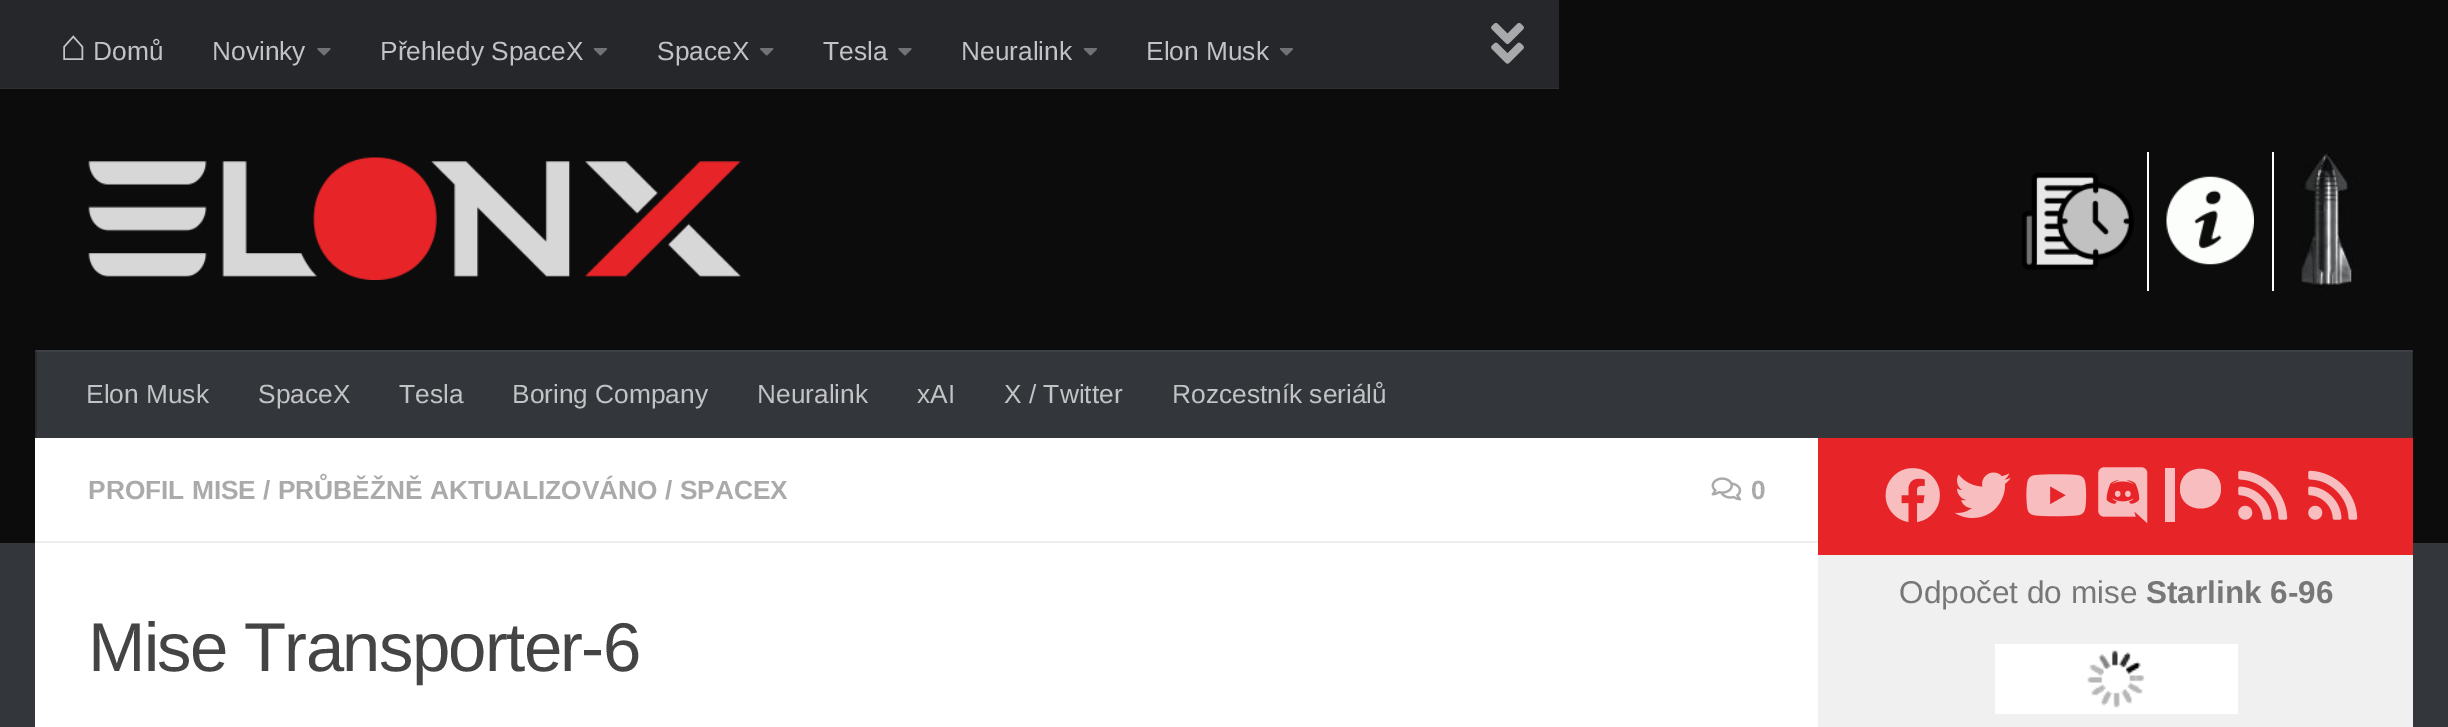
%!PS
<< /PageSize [2448 727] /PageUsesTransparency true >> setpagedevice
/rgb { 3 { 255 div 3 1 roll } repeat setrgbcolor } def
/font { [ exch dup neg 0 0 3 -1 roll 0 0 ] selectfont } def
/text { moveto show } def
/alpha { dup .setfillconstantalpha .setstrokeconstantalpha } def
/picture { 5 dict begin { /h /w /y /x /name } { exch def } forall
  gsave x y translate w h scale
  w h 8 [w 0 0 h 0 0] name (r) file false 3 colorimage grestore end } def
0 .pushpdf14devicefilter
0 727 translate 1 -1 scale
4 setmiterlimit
51 54 59 rgb
0 0 2448 727 rectfill
12 12 12 rgb
0 0 2448 543 rectfill
48 48 48 rgb
0 88 1559 1 rectfill
38 39 43 rgb
0 0 1559 88 rectfill
(img_01.rgb) 317 48 14 8 picture
(img_02.rgb) 593 48 14 8 picture
(img_03.rgb) 760 48 14 8 picture
(img_01.rgb) 898 48 14 8 picture
(img_02.rgb) 1083 48 14 8 picture
(img_02.rgb) 1279 48 14 8 picture
(img_04.rgb) 1491 23 33 41 picture
(img_05.rgb) 88 157 653 123 picture
255 255 255 rgb
2147 152 2 139 rectfill
(img_06.rgb) 2021 172 113 98 picture
2272 152 2 139 rectfill
(img_07.rgb) 2166 176 88 89 picture
(img_08.rgb) 2301 153 54 136 picture
51 54 59 rgb
37 350 2376 88 rectfill
0.2 alpha
0 0 0 rgb
2412 350 1 88 rectfill
1 alpha
41 43 47 rgb
35 350 2 88 rectfill
0.05 alpha
255 255 255 rgb
35 350 2378 2 rectfill
1 alpha
35 438 1783 289 rectfill
238 238 238 rgb
35 541 1783 2 rectfill
(img_09.rgb) 1711 477 31 24 picture
231 37 41 rgb
1818 438 595 117 rectfill
(img_10.rgb) 1885 468 55 54 picture
(img_11.rgb) 1955 472 56 46 picture
(img_12.rgb) 2026 474 61 43 picture
(img_13.rgb) 2098 467 50 57 picture
248 190 191 rgb
2221 489 moveto 0 26 -41 26 -41 0 rcurveto 0 -27 41 -27 41 0 rcurveto closepath 2165 522 moveto 0 -54 rlineto 10 0 rlineto 0 54 rlineto closepath fill
(img_14.rgb) 2238 470 50 50 picture
(img_14.rgb) 2308 470 50 50 picture
240 240 240 rgb
1818 555 595 172 rectfill
255 255 255 rgb
1995 644 243 70 rectfill
(img_15.rgb) 2087 650 58 58 picture
/LiberationSans-Regular 44 font
194 195 196 rgb
(⌂) 60 60 text
/LiberationSans-Regular 26.3 font
(Domů) 93 60 text
(Novinky) 212 60 text
(Přehledy SpaceX) 380 60 text
(SpaceX) 657 60 text
(Tesla) 823 60 text
(Neuralink) 961 60 text
(Elon Musk) 1146 60 text
(Elon Musk) 86 403 text
(SpaceX) 258 403 text
(Tesla) 399 403 text
(Boring Company) 512 403 text
(Neuralink) 757 403 text
(xAI) 917 403 text
(X / Twitter) 1004 403 text
(Rozcestník seriálů) 1172 403 text
/LiberationSans-Bold 26.3 font
170 170 170 rgb
(PROFIL MISE / PRŮBĚŽNĚ AKTUALIZOVÁNO / SPACEX) 88 499 text
(0) 1751 499 text
/LiberationSans-Regular 69 font
68 68 68 rgb
88 671 moveto -1.75 0 (Mise Transporter-6) ashow
/LiberationSans-Regular 31.5 font
119 119 119 rgb
(Odpočet do mise) 1899 603 text
/LiberationSans-Bold 31.5 font
(Starlink 6-96) 2146 603 text
.poppdf14devicefilter showpage
